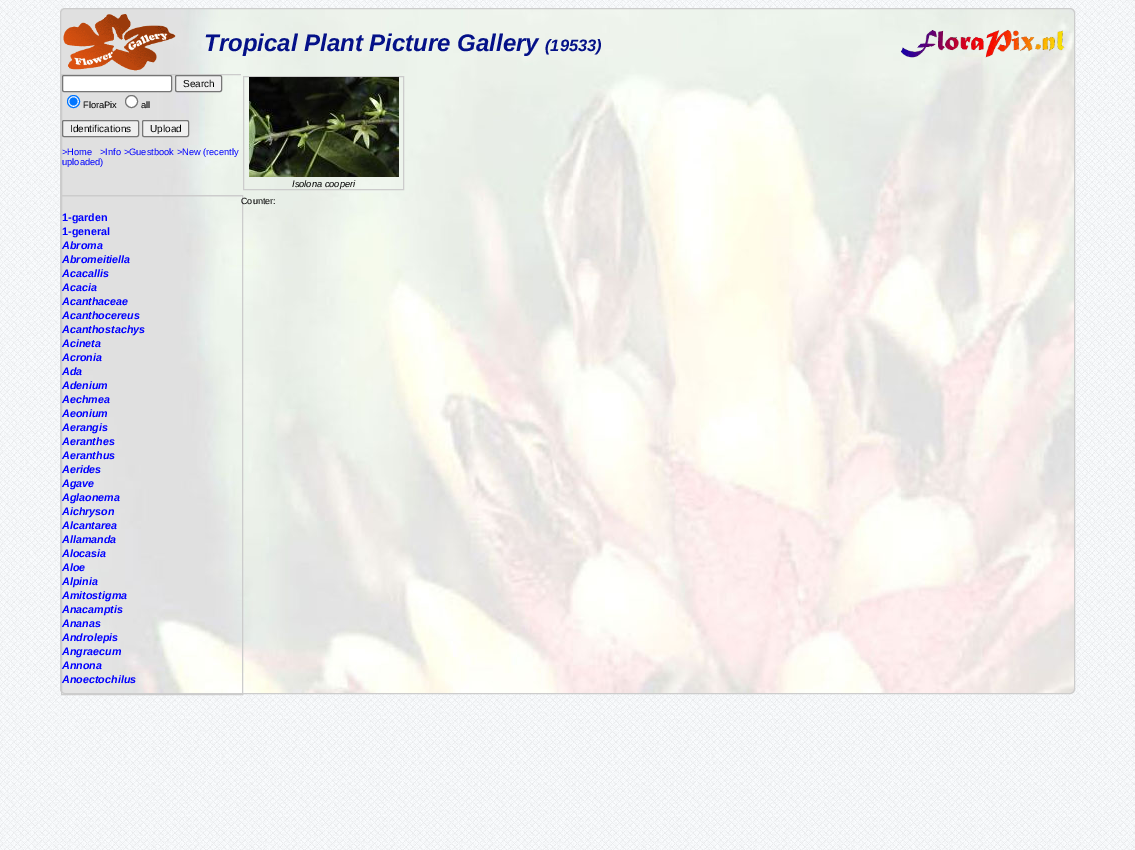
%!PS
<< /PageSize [1135 850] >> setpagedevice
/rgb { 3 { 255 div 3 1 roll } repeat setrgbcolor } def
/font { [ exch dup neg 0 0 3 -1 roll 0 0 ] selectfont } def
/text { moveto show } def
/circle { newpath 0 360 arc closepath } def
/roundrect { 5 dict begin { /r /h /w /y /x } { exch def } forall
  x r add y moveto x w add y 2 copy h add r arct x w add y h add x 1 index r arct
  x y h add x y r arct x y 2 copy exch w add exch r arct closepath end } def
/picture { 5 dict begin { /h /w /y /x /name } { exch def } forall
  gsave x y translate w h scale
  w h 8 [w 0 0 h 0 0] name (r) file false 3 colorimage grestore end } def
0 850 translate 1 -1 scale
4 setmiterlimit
255 255 255 rgb
0 0 1135 850 rectfill
(img_01.rgb) 0 0 1135 850 picture
(img_02.rgb) 60 8 1015 686 picture
204 204 204 rgb
60.5 8.5 1014 685 4.5 roundrect stroke
(img_03.rgb) 63 14 113 57 picture
(img_04.rgb) 900 29 165 29 picture
gsave
61 74 180 619 rectclip
61.5 74.5 181 121 rectstroke
grestore
255 255 255 rgb
62.5 75.5 109 16 1.5 roundrect gsave fill grestore
118 118 118 rgb
stroke
239 239 239 rgb
175.5 75.5 46 16 1.5 roundrect gsave fill grestore
118 118 118 rgb
stroke
255 255 255 rgb
73.5 101.5 6 circle gsave fill grestore
0 117 255 rgb
stroke
73.5 101.5 4 circle fill
255 255 255 rgb
131.5 101.5 6 circle gsave fill grestore
118 118 118 rgb
stroke
239 239 239 rgb
62.5 120.5 76 16 1.5 roundrect gsave fill grestore
118 118 118 rgb
stroke
239 239 239 rgb
142.5 120.5 46 16 1.5 roundrect gsave fill grestore
118 118 118 rgb
stroke
204 204 204 rgb
61.5 195.5 181 499 rectstroke
243.5 76.5 160 113 rectstroke
(img_05.rgb) 249 77 150 100 picture
/LiberationSans-BoldItalic 24 font
4 17 136 rgb
(Tropical Plant Picture Gallery) 204 51 text
/LiberationSans-BoldItalic 16.5 font
(\(19533\)) 545 51 text
/LiberationSans-Regular 10 font
0 0 0 rgb
(Search) 183 87 text
/LiberationSans-Regular 9.3 font
(FloraPix) 83 108 text
(all) 141 108 text
/LiberationSans-Regular 10 font
(Identifications) 70 132 text
(Upload) 150 132 text
/LiberationSans-Regular 9.3 font
0 0 255 rgb
(>Home) 62 155 text
(>Info >Guestbook >New \(recently) 100 155 text
(uploaded\)) 62 165 text
/LiberationSans-Bold 10.75 font
(1-garden) 62 221 text
(1-general) 62 235 text
/LiberationSans-BoldItalic 10.75 font
(Abroma) 62 249 text
(Abromeitiella) 62 263 text
(Acacallis) 62 277 text
(Acacia) 62 291 text
(Acanthaceae) 62 305 text
(Acanthocereus) 62 319 text
(Acanthostachys) 62 333 text
(Acineta) 62 347 text
(Acronia) 62 361 text
(Ada) 62 375 text
(Adenium) 62 389 text
(Aechmea) 62 403 text
(Aeonium) 62 417 text
(Aerangis) 62 431 text
(Aeranthes) 62 445 text
(Aeranthus) 62 459 text
(Aerides) 62 473 text
(Agave) 62 487 text
(Aglaonema) 62 501 text
(Aichryson) 62 515 text
(Alcantarea) 62 529 text
(Allamanda) 62 543 text
(Alocasia) 62 557 text
(Aloe) 62 571 text
(Alpinia) 62 585 text
(Amitostigma) 62 599 text
(Anacamptis) 62 613 text
(Ananas) 62 627 text
(Androlepis) 62 641 text
(Angraecum) 62 655 text
(Annona) 62 669 text
(Anoectochilus) 62 683 text
/LiberationSans-Italic 9.3 font
0 0 0 rgb
(Isolona cooperi) 292 187 text
/LiberationSans-Regular 9 font
(Counter:) 241 204 text
showpage
